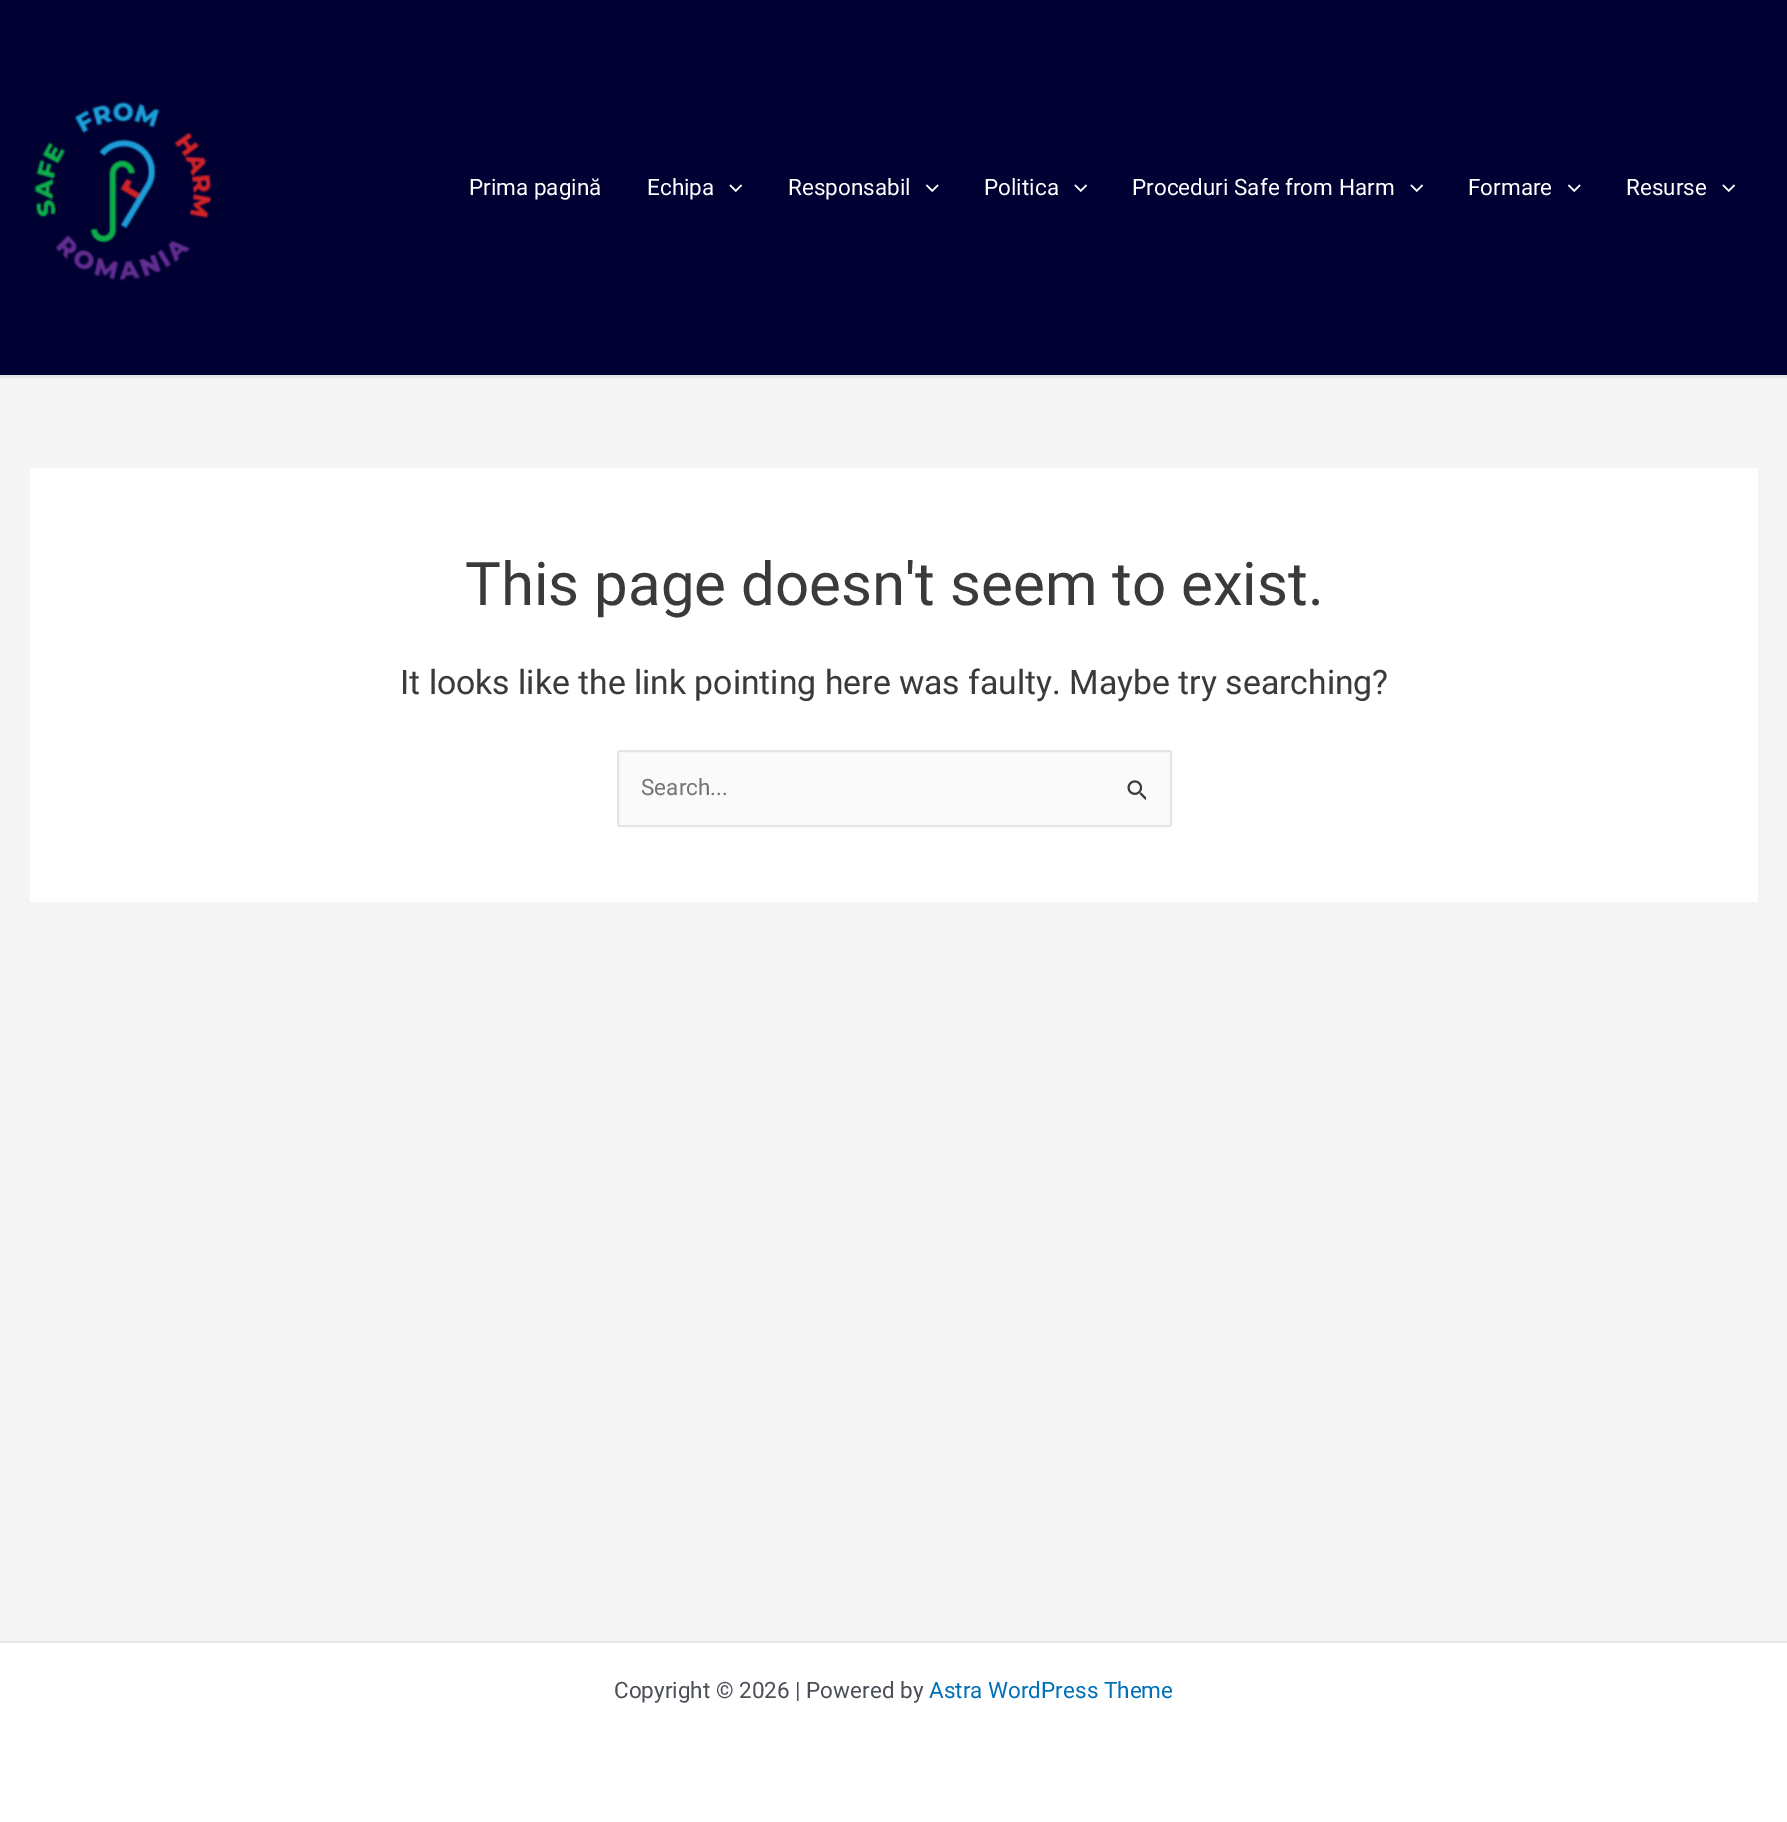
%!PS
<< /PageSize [1787 1822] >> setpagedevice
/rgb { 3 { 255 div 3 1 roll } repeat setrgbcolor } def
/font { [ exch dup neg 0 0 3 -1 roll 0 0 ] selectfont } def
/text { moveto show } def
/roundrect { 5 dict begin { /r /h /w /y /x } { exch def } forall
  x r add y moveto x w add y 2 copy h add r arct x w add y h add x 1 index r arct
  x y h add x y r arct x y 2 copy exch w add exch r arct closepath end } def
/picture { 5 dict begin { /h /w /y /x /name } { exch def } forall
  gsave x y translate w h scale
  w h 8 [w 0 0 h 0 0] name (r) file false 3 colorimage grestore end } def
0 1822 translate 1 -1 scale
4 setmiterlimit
245 245 245 rgb
0 0 1787 1822 rectfill
0 0 50 rgb
0 0 1787 375 rectfill
229 229 229 rgb
0 375 1787 3 rectfill
(img_01.rgb) 34 101 178 180 picture
(img_02.rgb) 729 184 14 8 picture
(img_03.rgb) 926 184 13 8 picture
(img_02.rgb) 1074 184 14 8 picture
(img_02.rgb) 1410 184 14 8 picture
(img_03.rgb) 1568 184 13 8 picture
(img_02.rgb) 1722 184 14 8 picture
255 255 255 rgb
30 468 1728 434 rectfill
250 250 250 rgb
618 751 553 75 2 roundrect gsave fill grestore
229 229 229 rgb
2 setlinewidth
stroke
(img_04.rgb) 1127 780 19 20 picture
255 255 255 rgb
0 1643 1787 179 rectfill
229 229 229 rgb
0 1641 1787 2 rectfill
/Roboto-Regular 22.5 font
255 255 255 rgb
(Prima pagină) 469 195 text
(Echipa) 647 195 text
(Responsabil) 788 195 text
(Politica) 984 195 text
(Proceduri Safe from Harm) 1132 195 text
(Formare) 1468 195 text
(Resurse) 1626 195 text
/Roboto-Regular 60 font
58 58 58 rgb
(This page doesn't seem to exist.) 465 605 text
/Roboto-Regular 33.75 font
(It looks like the link pointing here was faulty. Maybe try searching?) 400 694 text
/Roboto-Regular 22.5 font
117 117 117 rgb
(Search...) 641 795 text
75 79 88 rgb
(Copyright © 2026 | Powered by) 614 1698 text
1 112 185 rgb
(Astra WordPress Theme) 929 1698 text
showpage
